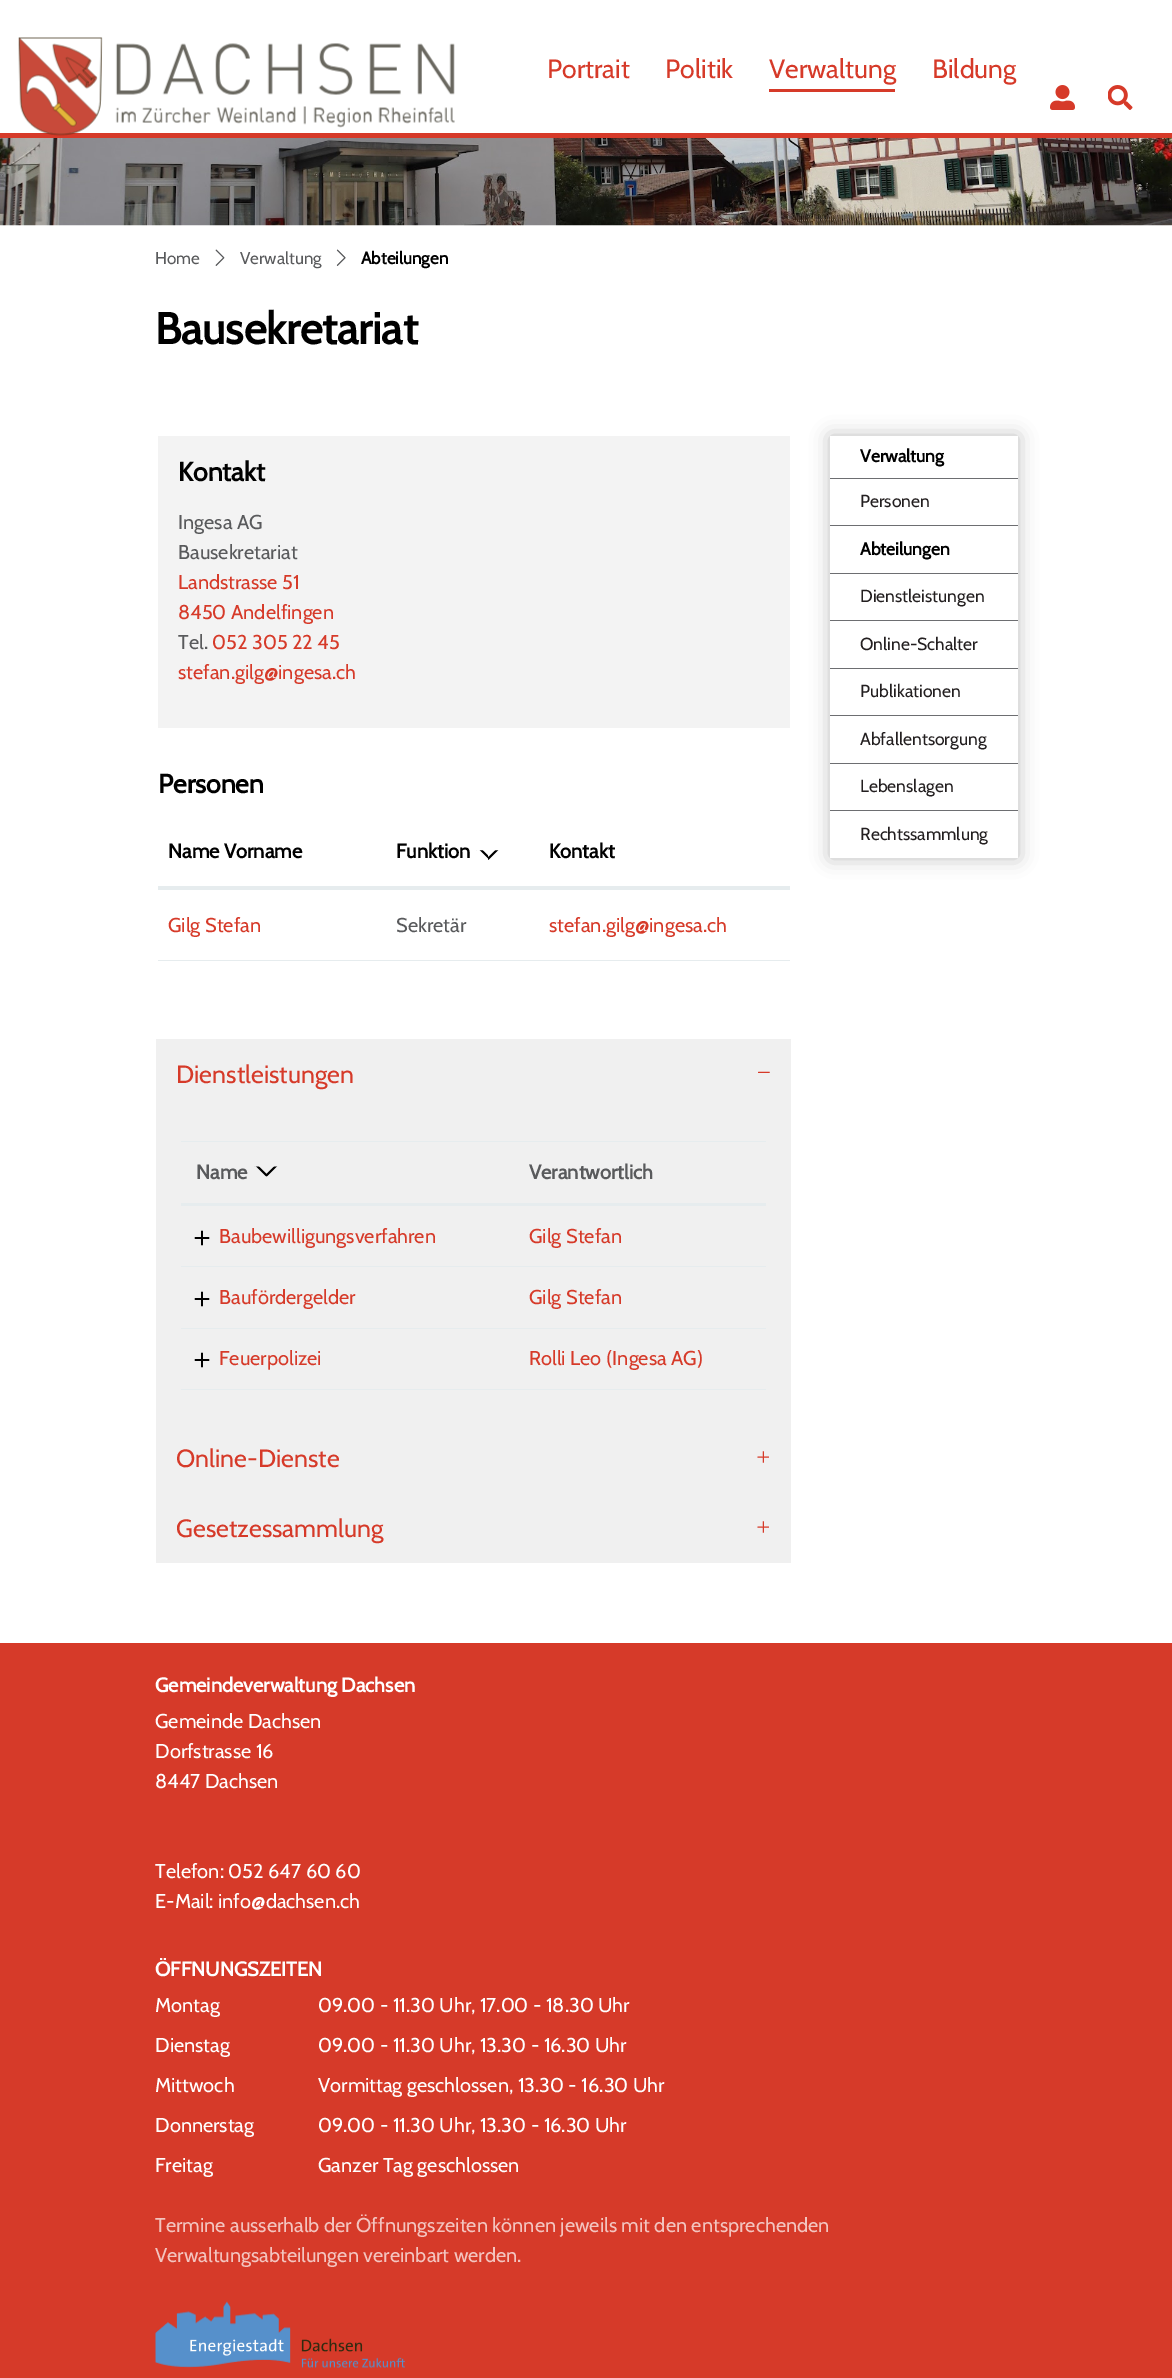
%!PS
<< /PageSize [1172 2378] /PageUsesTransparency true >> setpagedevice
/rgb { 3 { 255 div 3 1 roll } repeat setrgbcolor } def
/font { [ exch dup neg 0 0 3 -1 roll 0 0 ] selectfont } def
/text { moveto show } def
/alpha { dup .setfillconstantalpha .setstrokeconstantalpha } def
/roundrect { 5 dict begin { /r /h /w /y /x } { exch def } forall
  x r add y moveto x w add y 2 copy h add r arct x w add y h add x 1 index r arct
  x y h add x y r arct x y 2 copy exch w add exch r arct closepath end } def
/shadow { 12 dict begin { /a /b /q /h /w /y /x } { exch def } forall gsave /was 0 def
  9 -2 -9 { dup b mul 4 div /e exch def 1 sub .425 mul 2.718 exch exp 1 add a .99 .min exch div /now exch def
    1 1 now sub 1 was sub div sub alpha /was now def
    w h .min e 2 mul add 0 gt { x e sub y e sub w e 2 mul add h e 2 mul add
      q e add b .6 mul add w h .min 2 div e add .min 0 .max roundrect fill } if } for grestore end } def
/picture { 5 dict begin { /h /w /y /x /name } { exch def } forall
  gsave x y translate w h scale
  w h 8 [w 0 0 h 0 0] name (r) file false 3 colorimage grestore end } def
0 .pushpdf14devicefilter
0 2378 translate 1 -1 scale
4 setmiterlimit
255 255 255 rgb
0 0 1172 2378 rectfill
214 58 41 rgb
0 133 1172 5 rectfill
(img_01.rgb) 18 37 437 99 picture
769 89 126 3 rectfill
(img_02.rgb) 1050 85 25 25 picture
(img_03.rgb) 1108 85 25 25 picture
(img_04.rgb) 0 138 1172 88 picture
(img_05.rgb) 215 249 10 17 picture
(img_06.rgb) 336 249 10 17 picture
243 243 243 rgb
158 436 632 292 rectfill
230 236 238 rgb
158 960 632 1 rectfill
158 886 632 3 rectfill
(img_07.rgb) 476 850 23 10 picture
158 889 632 1 rectfill
240 240 240 rgb
156 1039 635 524 rectfill
230 236 238 rgb
181 1389 585 1 rectfill
181 1141 585 1 rectfill
181 1203 585 3 rectfill
(img_08.rgb) 254 1166 24 11 picture
181 1266 585 1 rectfill
181 1328 585 1 rectfill
gsave
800 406 moveto 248 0 rlineto 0 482 rlineto -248 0 rlineto closepath 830 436 moveto 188 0 rlineto 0 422 rlineto -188 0 rlineto closepath eoclip newpath
0 0 0 rgb
830 436 188 422 0 9.5 0.25 shadow
grestore
109 110 113 rgb
830 478 188 1 rectfill
830 525 188 1 rectfill
830 573 188 1 rectfill
830 620 188 1 rectfill
830 668 188 1 rectfill
830 715 188 1 rectfill
830 763 188 1 rectfill
830 810 188 1 rectfill
214 58 41 rgb
0 1643 1172 735 rectfill
(img_09.rgb) 155 2301 250 67 picture
/Cabin-Regular 26.5 font
(Portrait) 547 78 text
(Politik) 665 78 text
(Verwaltung) 769 78 text
(Bildung) 932 78 text
/Cabin-Regular 17 font
89 90 92 rgb
(Home) 155 264 text
(Verwaltung) 240 264 text
/Cabin-Bold 17 font
0 0 0 rgb
(Abteilungen) 361 264 text
/Cabin-Bold 44 font
(Bausekretariat) 155 344 text
/Cabin-Bold 26.5 font
(Kontakt) 178 481 text
/Cabin-Regular 20 font
89 90 92 rgb
(Ingesa AG) 178 529 text
(Bausekretariat) 178 559 text
214 58 41 rgb
(Landstrasse 51) 178 589 text
(8450 Andelfingen) 178 619 text
89 90 92 rgb
(Tel.) 178 649 text
214 58 41 rgb
(052 305 22 45) 212 649 text
(stefan.gilg@ingesa.ch) 178 679 text
/Cabin-Bold 26.5 font
0 0 0 rgb
(Personen) 158 793 text
/Cabin-Bold 20 font
(Name Vorname) 168 858 text
(Funktion) 396 858 text
(Kontakt) 549 858 text
/Cabin-Regular 20 font
214 58 41 rgb
(Gilg Stefan) 168 932 text
89 90 92 rgb
(Sekretär) 396 932 text
214 58 41 rgb
(stefan.gilg@ingesa.ch) 549 932 text
/Cabin-Regular 25 font
(Dienstleistungen) 176 1083 text
/LiberationSerif-Regular 25 font
gsave 771 1064 translate 180 rotate 0 0 moveto (−) show grestore
/Cabin-Bold 20 font
89 90 92 rgb
(Name) 196 1179 text
(Verantwortlich) 529 1179 text
/LiberationMono-Regular 30 font
0 0 0 rgb
(+) 193 1248 text
/Cabin-Regular 20 font
214 58 41 rgb
(Baubewilligungsverfahren) 219 1243 text
(Gilg Stefan) 529 1243 text
/LiberationMono-Regular 30 font
0 0 0 rgb
(+) 193 1309 text
/Cabin-Regular 20 font
214 58 41 rgb
(Baufördergelder) 219 1304 text
(Gilg Stefan) 529 1304 text
/LiberationMono-Regular 30 font
0 0 0 rgb
(+) 193 1370 text
/Cabin-Regular 20 font
214 58 41 rgb
(Feuerpolizei) 219 1365 text
(Rolli Leo \(Ingesa AG\)) 529 1365 text
/Cabin-Regular 25 font
(Online-Dienste) 176 1467 text
/LiberationSerif-Regular 25 font
gsave 755 1450 translate 90 rotate 0 0 moveto (+) show grestore
/Cabin-Regular 25 font
(Gesetzessammlung) 176 1537 text
/LiberationSerif-Regular 25 font
gsave 755 1520 translate 90 rotate 0 0 moveto (+) show grestore
/Cabin-Bold 17.5 font
0 0 0 rgb
(Verwaltung) 860 462 text
/Cabin-Regular 17.5 font
35 31 32 rgb
(Personen) 860 507 text
/Cabin-Bold 17.5 font
0 0 0 rgb
(Abteilungen) 860 555 text
/Cabin-Regular 17.5 font
35 31 32 rgb
(Dienstleistungen) 860 602 text
(Online-Schalter) 860 650 text
(Publikationen) 860 697 text
(Abfallentsorgung) 860 745 text
(Lebenslagen) 860 792 text
(Rechtssammlung) 860 840 text
/Cabin-Bold 20 font
255 255 255 rgb
(Gemeindeverwaltung Dachsen) 155 1692 text
/Cabin-Regular 20 font
(Gemeinde Dachsen) 155 1728 text
(Dorfstrasse 16) 155 1758 text
(8447 Dachsen) 155 1788 text
(Telefon: 052 647 60 60) 155 1878 text
(E-Mail: info@dachsen.ch) 155 1908 text
/Cabin-Bold 20 font
(ÖFFNUNGSZEITEN) 155 1976 text
/Cabin-Regular 20 font
(Montag) 155 2012 text
(09.00 - 11.30 Uhr, 17.00 - 18.30 Uhr) 318 2012 text
(Dienstag) 155 2052 text
(09.00 - 11.30 Uhr, 13.30 - 16.30 Uhr) 318 2052 text
(Mittwoch) 155 2092 text
(Vormittag geschlossen, 13.30 - 16.30 Uhr) 318 2092 text
(Donnerstag) 155 2132 text
(09.00 - 11.30 Uhr, 13.30 - 16.30 Uhr) 318 2132 text
(Freitag) 155 2172 text
(Ganzer Tag geschlossen) 318 2172 text
243 196 191 rgb
(Termine ausserhalb der Öffnungszeiten können jeweils mit den entsprechenden) 155 2232 text
(Verwaltungsabteilungen vereinbart werden.) 155 2262 text
.poppdf14devicefilter showpage
